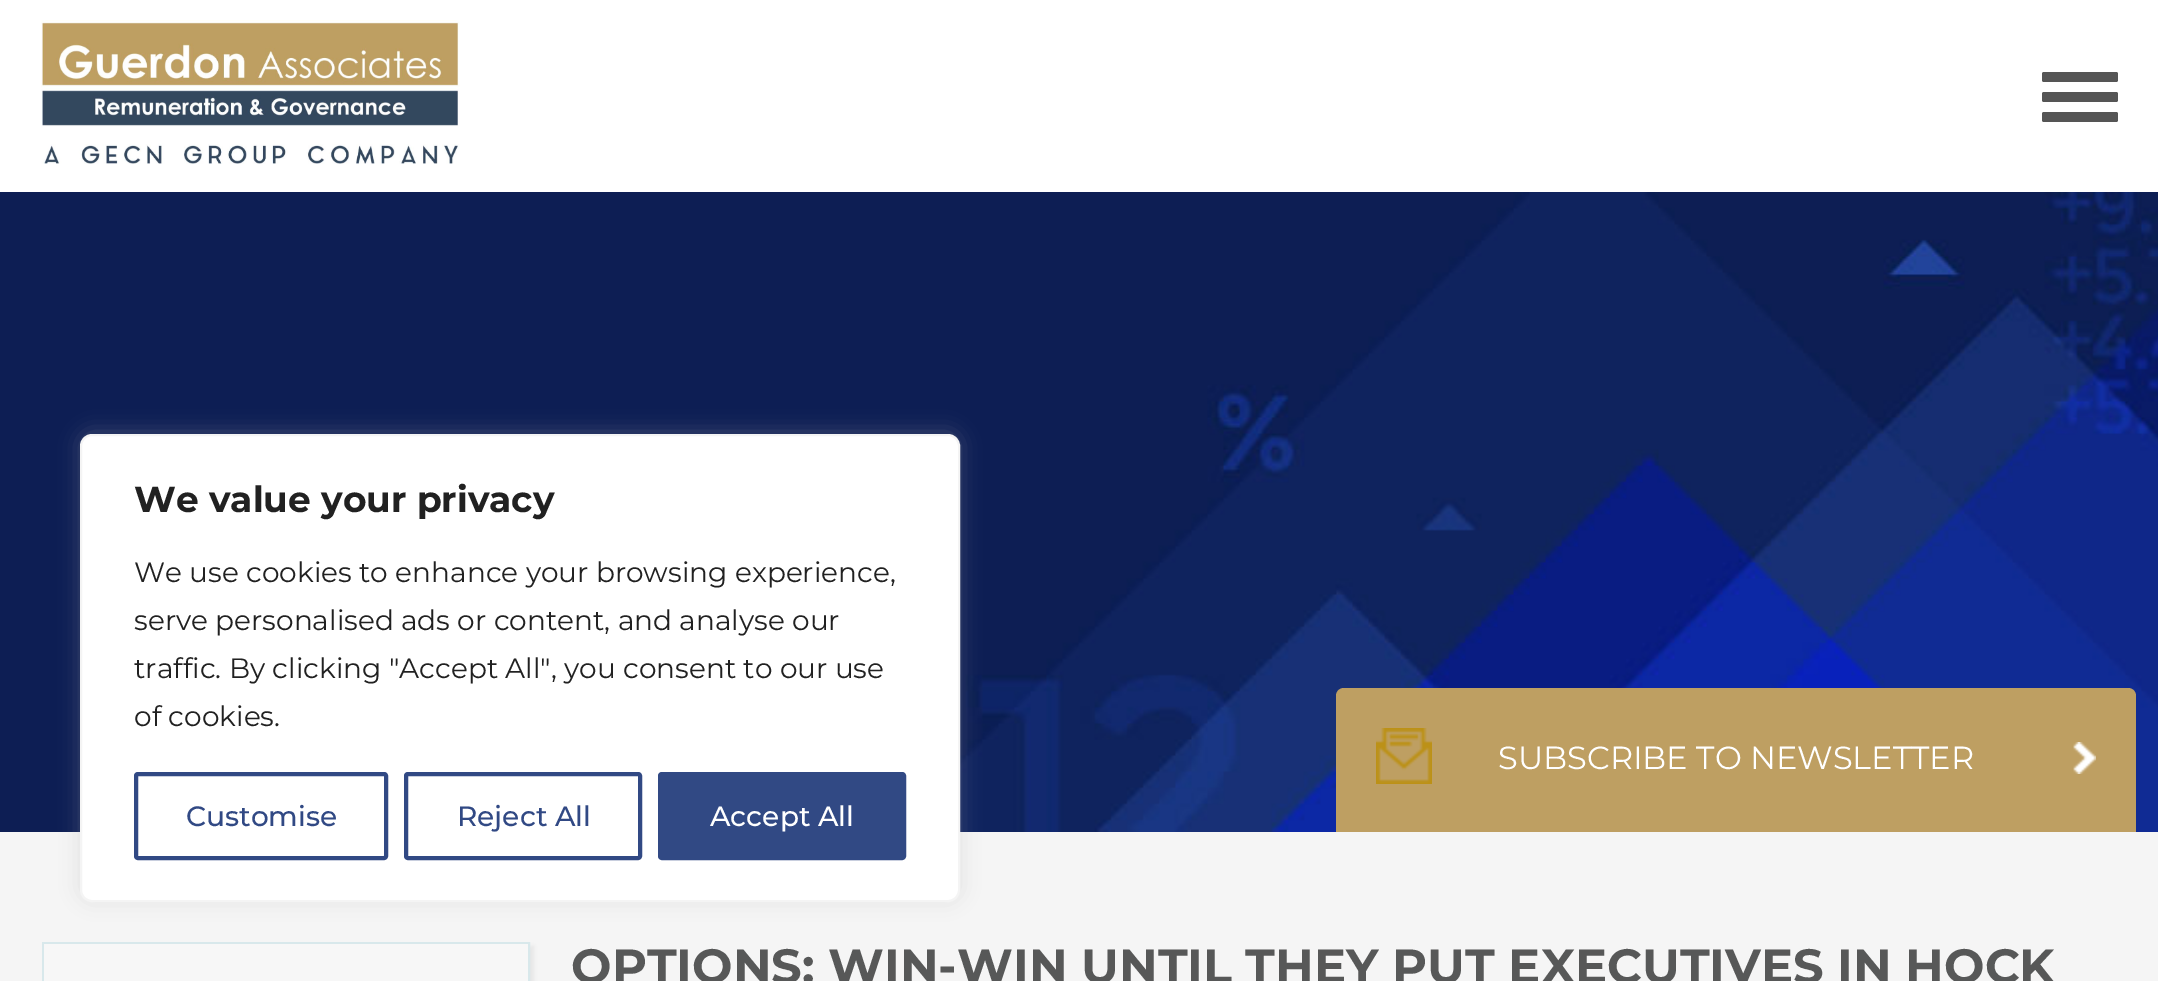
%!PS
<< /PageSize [2158 981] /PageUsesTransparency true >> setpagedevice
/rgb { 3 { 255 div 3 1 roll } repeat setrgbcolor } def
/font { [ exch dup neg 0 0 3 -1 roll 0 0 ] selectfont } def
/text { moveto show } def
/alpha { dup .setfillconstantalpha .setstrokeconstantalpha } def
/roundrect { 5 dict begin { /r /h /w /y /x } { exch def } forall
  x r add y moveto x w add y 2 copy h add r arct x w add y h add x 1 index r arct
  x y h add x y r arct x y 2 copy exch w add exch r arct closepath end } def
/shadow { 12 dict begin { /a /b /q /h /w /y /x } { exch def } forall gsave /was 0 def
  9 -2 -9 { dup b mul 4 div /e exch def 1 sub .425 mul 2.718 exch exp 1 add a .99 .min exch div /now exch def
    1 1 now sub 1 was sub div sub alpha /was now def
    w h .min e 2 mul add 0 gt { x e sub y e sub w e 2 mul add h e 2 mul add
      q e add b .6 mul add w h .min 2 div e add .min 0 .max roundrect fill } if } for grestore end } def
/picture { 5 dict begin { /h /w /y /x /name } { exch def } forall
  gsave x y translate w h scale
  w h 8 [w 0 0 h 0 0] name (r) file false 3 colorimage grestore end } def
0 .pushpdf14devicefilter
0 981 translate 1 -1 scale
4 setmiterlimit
245 245 245 rgb
0 0 2158 981 rectfill
13 30 84 rgb
0 192 564 640 rectfill
(img_02.rgb) 564 192 1594 640 picture
172 171 171 rgb
80 432 880 468 12 10 0.3 shadow
255 255 255 rgb
81 435 878 466 11 roundrect gsave fill grestore
244 244 244 rgb
2 setlinewidth
stroke
49 73 132 rgb
4 setlinewidth
136 774 250 84 2 roundrect stroke
406 774 234 84 2 roundrect stroke
660 774 244 84 2 roundrect gsave fill grestore
stroke
255 255 255 rgb
0 0 2158 192 rectfill
(img_01.rgb) 41 20 419 144 picture
85 85 85 rgb
2042 72 76 10 2 roundrect fill
2042 92 76 10 2 roundrect fill
2042 112 76 10 2 roundrect fill
190 159 98 rgb
1344 688 moveto 784 0 rlineto 4.5 0 8 3.5 8 8 rcurveto 0 136 rlineto -800 0 rlineto 0 -136 rlineto 0 -4.5 3.5 -8 8 -8 rcurveto closepath fill
(img_03.rgb) 1376 728 56 56 picture
(img_04.rgb) 2073 742 23 32 picture
0 0 0 rgb
46 946 488 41 0 2 0.06 shadow
216 232 235 rgb
2 setlinewidth
43 943 486 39 rectstroke
247 247 247 rgb
44 944 484 37 rectfill
/Montserrat-Bold 36 font
33 33 33 rgb
(We value your privacy) 134 512 text
/Montserrat-Regular 28 font
(We use cookies to enhance your browsing experience,) 134 582 text
(serve personalised ads or content, and analyse our) 134 630 text
(traffic. By clicking "Accept All", you consent to our use) 134 678 text
(of cookies.) 134 726 text
/Montserrat-Medium 28 font
49 73 132 rgb
(Customise) 186 826 text
(Reject All) 457 826 text
255 255 255 rgb
(Accept All) 710 826 text
/Montserrat-Regular 32 font
(SUBSCRIBE TO NEWSLETTER) 1498 769 text
/Montserrat-Bold 48 font
87 88 88 rgb
(OPTIONS: WIN-WIN UNTIL THEY PUT EXECUTIVES IN HOCK) 571 983 text
.poppdf14devicefilter showpage
